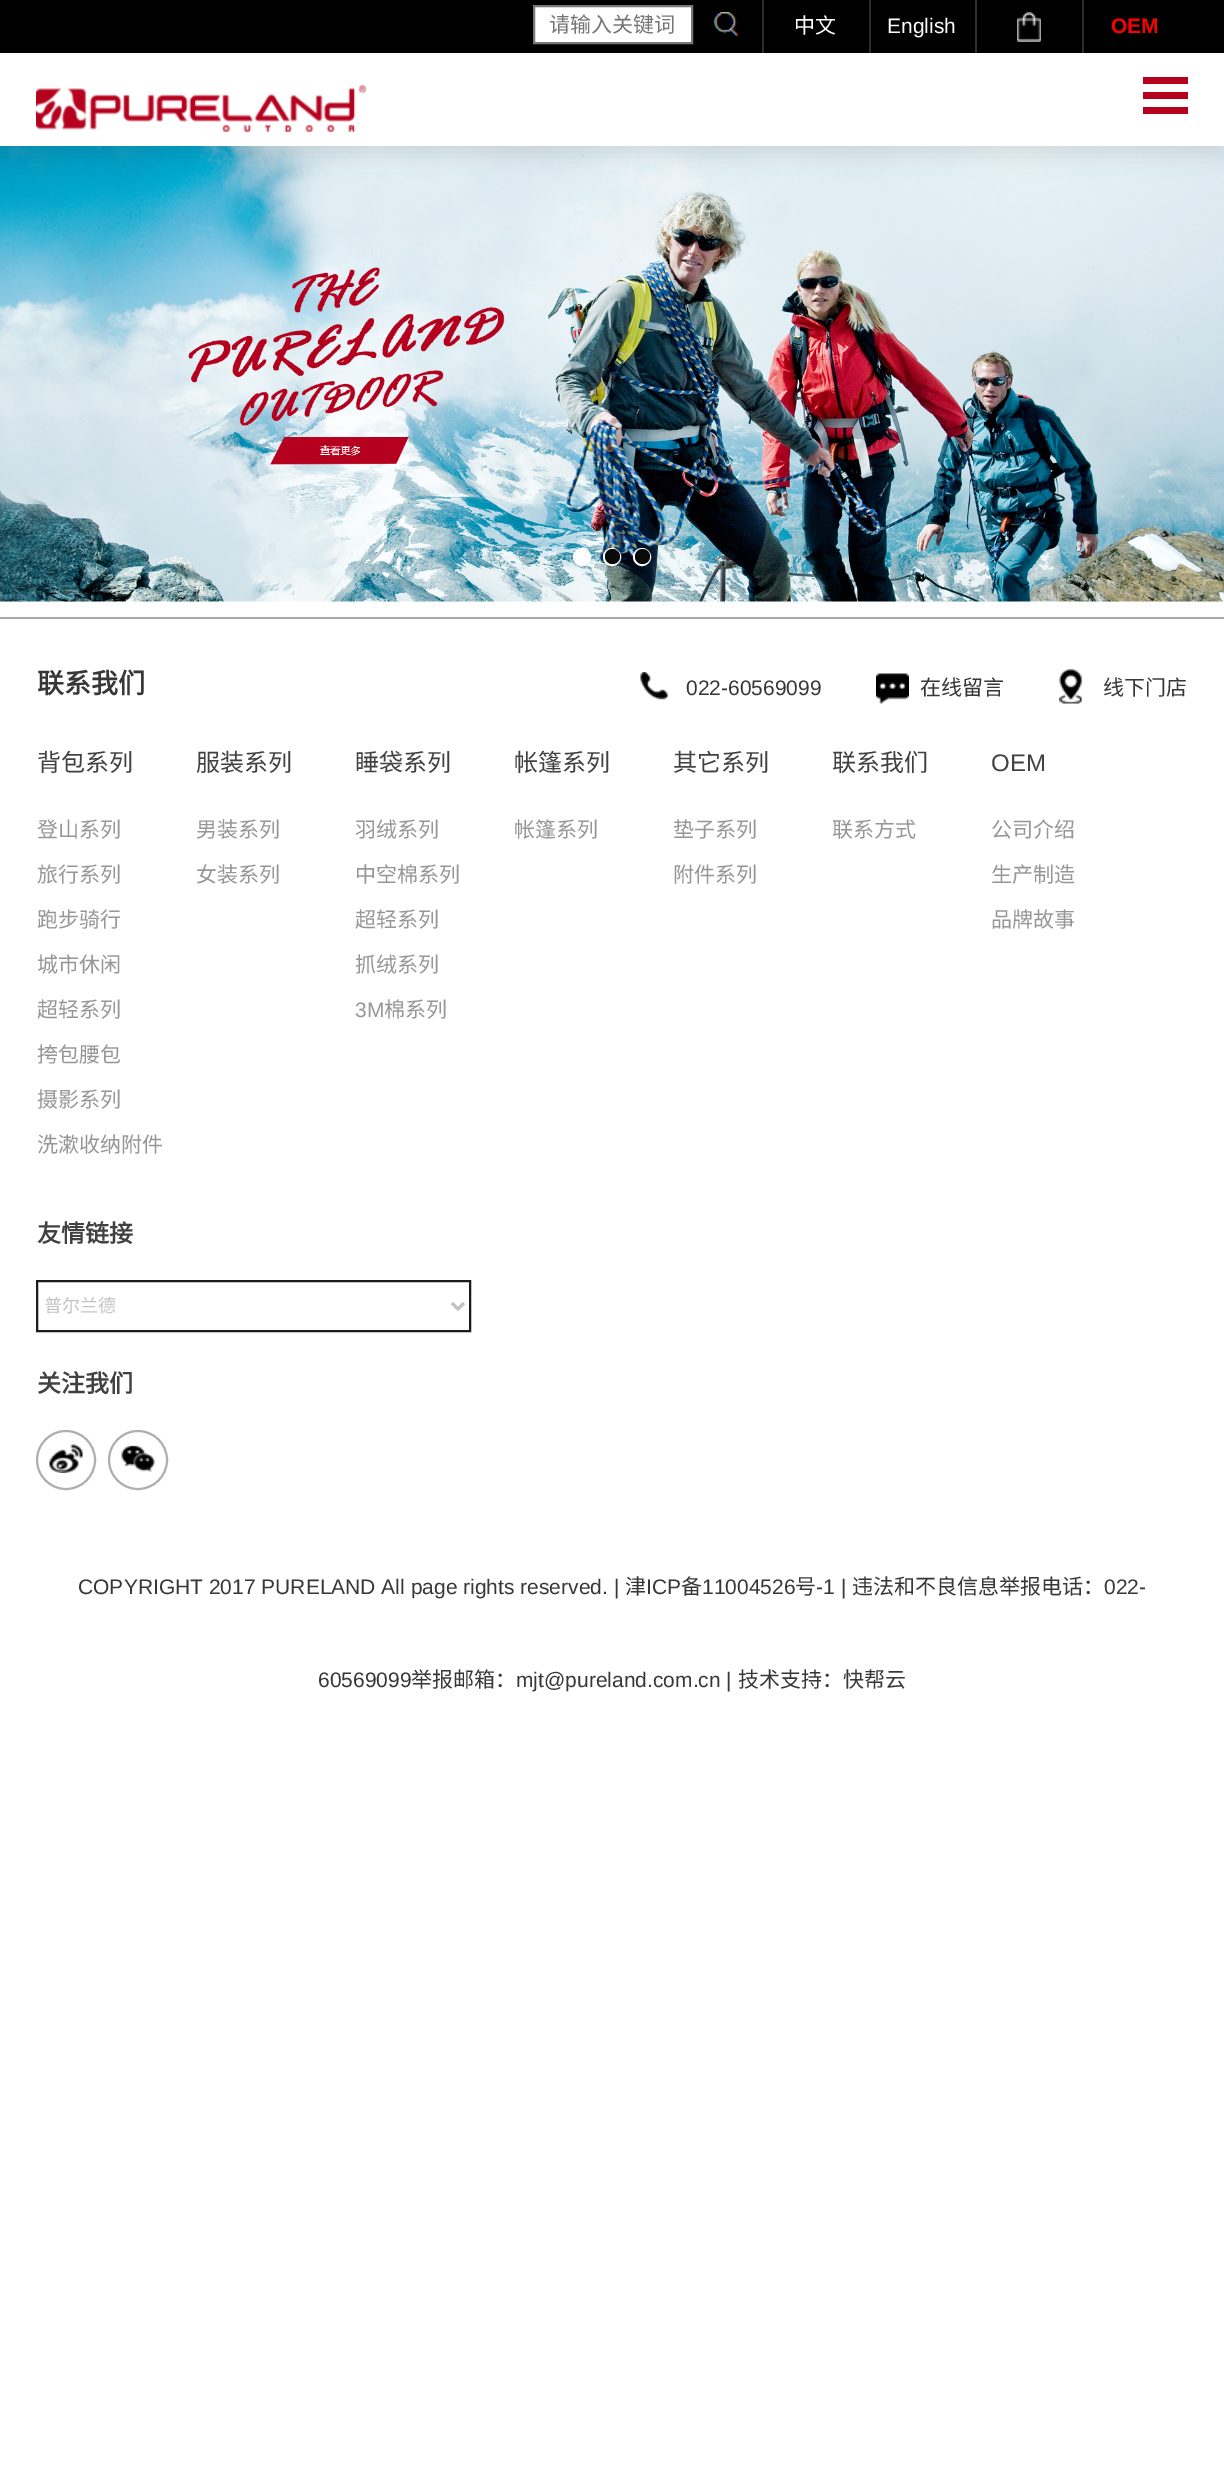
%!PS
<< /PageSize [1224 2483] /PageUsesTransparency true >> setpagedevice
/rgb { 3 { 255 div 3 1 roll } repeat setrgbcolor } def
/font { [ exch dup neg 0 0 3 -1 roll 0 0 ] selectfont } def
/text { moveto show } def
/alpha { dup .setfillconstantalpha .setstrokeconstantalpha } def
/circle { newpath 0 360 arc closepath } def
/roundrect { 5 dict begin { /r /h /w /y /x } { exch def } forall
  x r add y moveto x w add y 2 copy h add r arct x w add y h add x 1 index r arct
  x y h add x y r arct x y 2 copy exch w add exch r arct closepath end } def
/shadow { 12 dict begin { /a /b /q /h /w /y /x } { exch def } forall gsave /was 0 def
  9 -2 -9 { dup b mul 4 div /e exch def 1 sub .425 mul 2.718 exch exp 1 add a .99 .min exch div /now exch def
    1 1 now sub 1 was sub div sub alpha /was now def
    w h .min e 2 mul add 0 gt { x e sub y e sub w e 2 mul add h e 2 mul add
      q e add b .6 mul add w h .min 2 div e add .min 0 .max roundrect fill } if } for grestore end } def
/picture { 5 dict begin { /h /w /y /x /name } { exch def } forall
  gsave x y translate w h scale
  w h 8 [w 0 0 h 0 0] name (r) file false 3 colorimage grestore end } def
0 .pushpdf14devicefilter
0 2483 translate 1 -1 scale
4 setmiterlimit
255 255 255 rgb
0 0 1224 2483 rectfill
(img_04.rgb) 0 146 1224 456 picture
34 24 21 rgb
0 11 1224 145 0 10 0.1 shadow
255 255 255 rgb
0 53 1224 93 rectfill
0 0 0 rgb
0 0 1224 53 rectfill
255 255 255 rgb
534 6 moveto 158 0 rlineto 0 37 rlineto -158 0 rlineto closepath gsave fill grestore
119 119 119 rgb
2 setlinewidth
stroke
(img_01.rgb) 714 12 24 24 picture
45 45 45 rgb
762 0 2 53 rectfill
869 0 2 53 rectfill
(img_02.rgb) 1017 12 24 30 picture
975 0 2 53 rectfill
1082 0 2 53 rectfill
(img_03.rgb) 36 85 330 47 picture
181 0 30 rgb
1143 77 45 7 rectfill
1143 92 45 7 rectfill
1143 107 45 7 rectfill
255 255 255 rgb
582 557 8 circle stroke
582.5 556.5 7.5 circle fill
612 557 8 circle stroke
10 10 10 rgb
612.5 556.5 7.5 circle fill
255 255 255 rgb
642 557 8 circle stroke
10 10 10 rgb
642.5 556.5 7.5 circle fill
169 169 169 rgb
0 617 1224 2 rectfill
(img_05.rgb) 640 672 28 28 picture
(img_06.rgb) 876 673 33 31 picture
(img_07.rgb) 1059 669 23 35 picture
27 27 27 rgb
37 1281 433 50 rectstroke
195 194 194 rgb
3 setlinewidth
452 1303 moveto 6 6 rlineto 6 -6 rlineto stroke
(img_08.rgb) 49 1444 34 29 picture
175 175 175 rgb
2 setlinewidth
66 1460 29 circle stroke
(img_09.rgb) 121 1445 34 27 picture
138 1460 29 circle stroke
/NotoSansCJKSC-Regular 21 font
117 117 117 rgb
(请输入关键词) 549 32 text
255 255 255 rgb
(中文) 794 33 text
/LiberationSans-Regular 21 font
(English) 887 33 text
/LiberationSans-Bold 21 font
250 0 0 rgb
(OEM) 1111 33 text
/NotoSansCJKSC-Bold 27 font
55 55 55 rgb
(联系我们) 37 693 text
/LiberationSans-Regular 21 font
(022-60569099) 686 695 text
/NotoSansCJKSC-Regular 21 font
(在线留言) 920 695 text
(线下门店) 1103 695 text
/NotoSansCJKSC-Regular 24 font
65 65 65 rgb
(背包系列) 37 771 text
/NotoSansCJKSC-Regular 21 font
150 150 150 rgb
(登山系列) 37 837 text
(旅行系列) 37 882 text
(跑步骑行) 37 927 text
(城市休闲) 37 972 text
(超轻系列) 37 1017 text
(挎包腰包) 37 1062 text
(摄影系列) 37 1107 text
(洗漱收纳附件) 37 1152 text
/NotoSansCJKSC-Regular 24 font
65 65 65 rgb
(服装系列) 196 771 text
/NotoSansCJKSC-Regular 21 font
150 150 150 rgb
(男装系列) 196 837 text
(女装系列) 196 882 text
/NotoSansCJKSC-Regular 24 font
65 65 65 rgb
(睡袋系列) 355 771 text
/NotoSansCJKSC-Regular 21 font
150 150 150 rgb
(羽绒系列) 355 837 text
(中空棉系列) 355 882 text
(超轻系列) 355 927 text
(抓绒系列) 355 972 text
/LiberationSans-Regular 21 font
(3M) 355 1017 text
/NotoSansCJKSC-Regular 21 font
(棉系列) 384 1017 text
/NotoSansCJKSC-Regular 24 font
65 65 65 rgb
(帐篷系列) 514 771 text
/NotoSansCJKSC-Regular 21 font
150 150 150 rgb
(帐篷系列) 514 837 text
/NotoSansCJKSC-Regular 24 font
65 65 65 rgb
(其它系列) 673 771 text
/NotoSansCJKSC-Regular 21 font
150 150 150 rgb
(垫子系列) 673 837 text
(附件系列) 673 882 text
/NotoSansCJKSC-Regular 24 font
65 65 65 rgb
(联系我们) 832 771 text
/NotoSansCJKSC-Regular 21 font
150 150 150 rgb
(联系方式) 832 837 text
/LiberationSans-Regular 24 font
65 65 65 rgb
(OEM) 991 771 text
/NotoSansCJKSC-Regular 21 font
150 150 150 rgb
(公司介绍) 991 837 text
(生产制造) 991 882 text
(品牌故事) 991 927 text
/NotoSansCJKSC-Bold 24 font
65 65 65 rgb
(友情链接) 37 1242 text
/NotoSansCJKSC-Regular 18 font
195 194 194 rgb
(普尔兰德) 44 1312 text
/NotoSansCJKSC-Bold 24 font
65 65 65 rgb
(关注我们) 37 1392 text
/LiberationSans-Regular 21 font
55 55 55 rgb
(COPYRIGHT 2017 PURELAND All page rights reserved. |) 78 1594 text
/NotoSansCJKSC-Regular 21 font
(津) 625 1594 text
/LiberationSans-Regular 21 font
(ICP) 646 1594 text
/NotoSansCJKSC-Regular 21 font
(备) 681 1594 text
/LiberationSans-Regular 21 font
(11004526) 702 1594 text
/NotoSansCJKSC-Regular 21 font
(号) 795 1594 text
/LiberationSans-Regular 21 font
(-1 |) 816 1594 text
/NotoSansCJKSC-Regular 21 font
(违法和不良信息举报电话：) 852 1594 text
/LiberationSans-Regular 21 font
(022-) 1104 1594 text
(60569099) 318 1687 text
/NotoSansCJKSC-Regular 21 font
(举报邮箱：) 411 1687 text
/LiberationSans-Regular 21 font
(mjt@pureland.com.cn |) 516 1687 text
/NotoSansCJKSC-Regular 21 font
(技术支持：快帮云) 738 1687 text
.poppdf14devicefilter showpage
